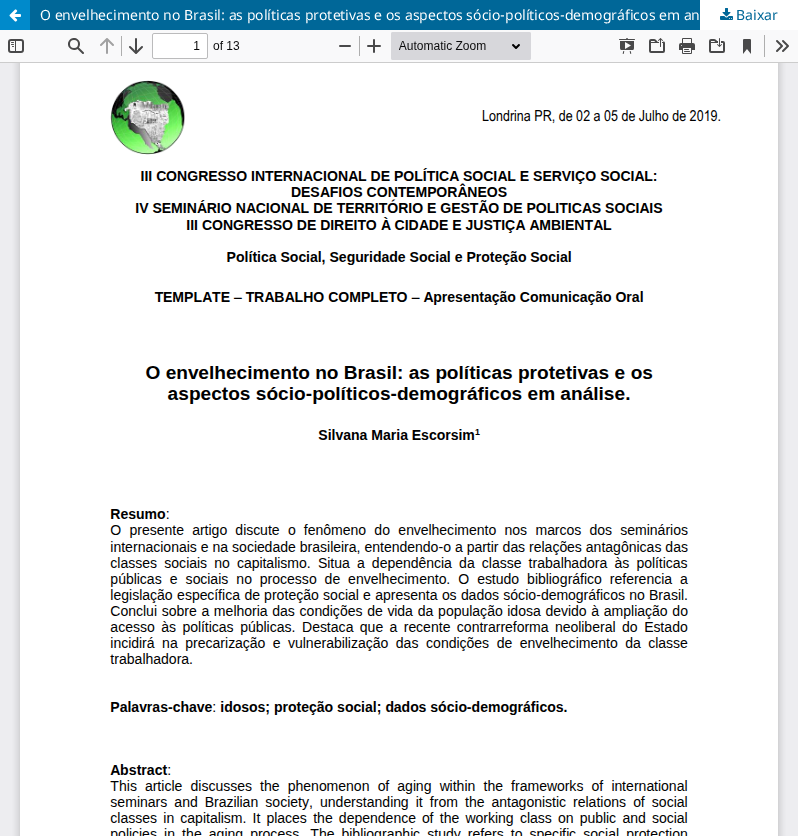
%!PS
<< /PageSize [798 836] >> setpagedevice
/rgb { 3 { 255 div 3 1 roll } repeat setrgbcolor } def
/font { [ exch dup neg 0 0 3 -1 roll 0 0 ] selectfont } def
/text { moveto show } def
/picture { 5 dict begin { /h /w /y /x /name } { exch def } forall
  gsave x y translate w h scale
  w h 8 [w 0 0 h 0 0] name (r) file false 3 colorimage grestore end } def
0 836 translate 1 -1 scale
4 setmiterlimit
255 255 255 rgb
0 0 798 836 rectfill
0 103 152 rgb
30 0 670 30 rectfill
0 138 203 rgb
0 0 30 30 rectfill
(img_01.rgb) 9 9 12 13 picture
(img_02.rgb) 720 8 13 12 picture
(img_03.rgb) 0 30 798 806 picture
/NotoSans-Regular 14 font
255 255 255 rgb
(O envelhecimento no Brasil: as políticas protetivas e os aspectos sócio-políticos-demográficos em an) 40 20 text
0 103 152 rgb
(Baixar) 736 20 text
showpage
